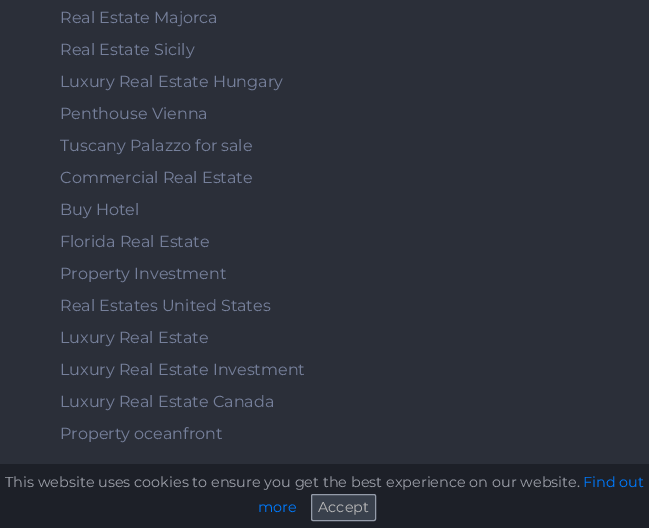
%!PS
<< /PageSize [649 528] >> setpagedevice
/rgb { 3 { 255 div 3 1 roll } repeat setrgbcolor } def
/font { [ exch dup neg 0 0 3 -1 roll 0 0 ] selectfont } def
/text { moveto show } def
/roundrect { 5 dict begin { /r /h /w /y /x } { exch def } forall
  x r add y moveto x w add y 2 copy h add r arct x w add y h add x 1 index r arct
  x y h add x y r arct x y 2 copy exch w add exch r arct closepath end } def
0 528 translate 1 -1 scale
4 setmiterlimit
43 47 57 rgb
0 0 649 528 rectfill
29 32 40 rgb
0 464 649 64 rectfill
57 64 76 rgb
311.5 494.5 64 26 1.5 roundrect gsave fill grestore
148 155 169 rgb
stroke
/Montserrat-Thin 16 font
118 128 155 rgb
(Real Estate Majorca) 60 23 text
(Real Estate Sicily) 60 55 text
(Luxury Real Estate Hungary) 60 87 text
(Penthouse Vienna) 60 119 text
(Tuscany Palazzo for sale) 60 151 text
(Commercial Real Estate) 60 183 text
(Buy Hotel) 60 215 text
(Florida Real Estate) 60 247 text
(Property Investment) 60 279 text
(Real Estates United States) 60 311 text
(Luxury Real Estate) 60 343 text
(Luxury Real Estate Investment) 60 375 text
(Luxury Real Estate Canada) 60 407 text
(Property oceanfront) 60 439 text
/Montserrat-Thin 14.4 font
156 159 168 rgb
(This website uses cookies to ensure you get the best experience on our website.) 5 487 text
0 123 255 rgb
(Find out) 583 487 text
(more) 258 512 text
185 185 185 rgb
(Accept) 318 512 text
showpage
